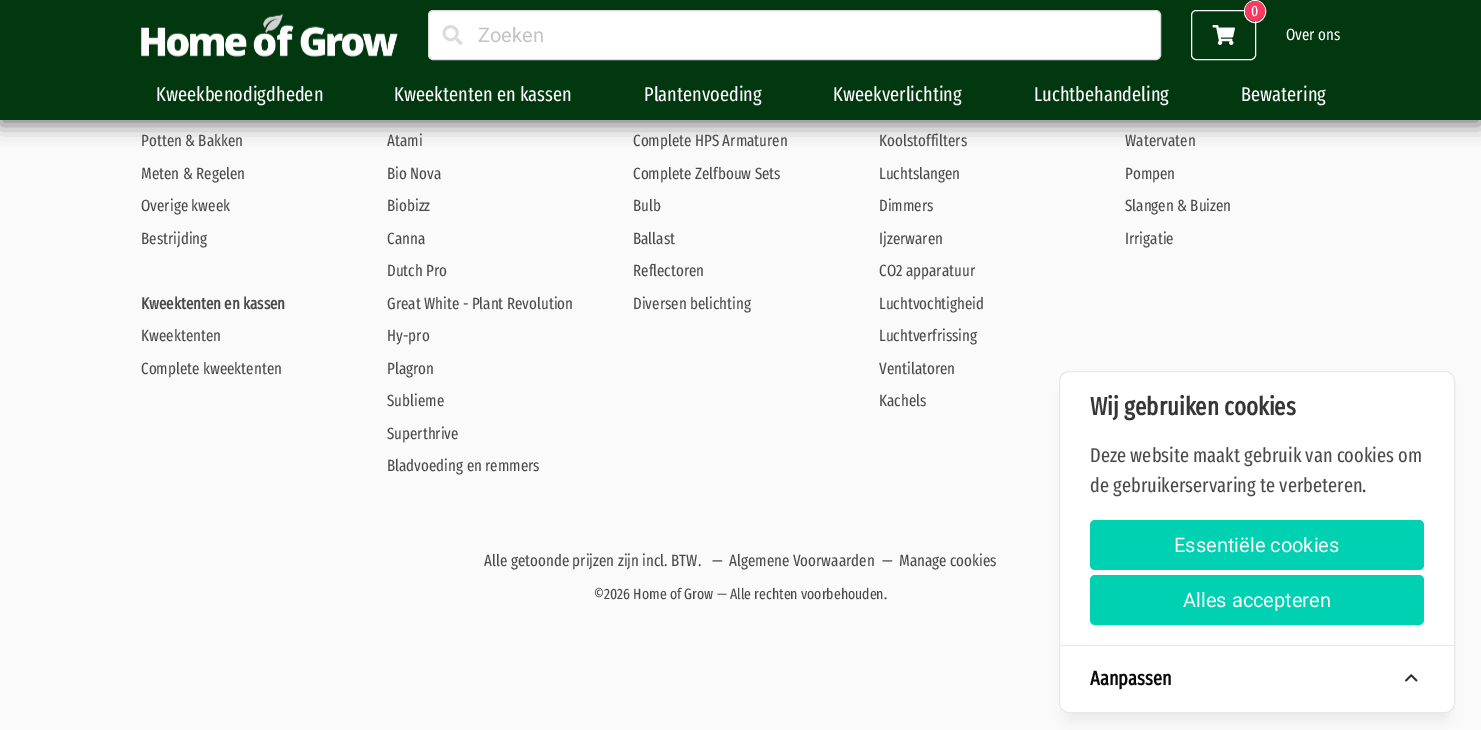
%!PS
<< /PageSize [1481 730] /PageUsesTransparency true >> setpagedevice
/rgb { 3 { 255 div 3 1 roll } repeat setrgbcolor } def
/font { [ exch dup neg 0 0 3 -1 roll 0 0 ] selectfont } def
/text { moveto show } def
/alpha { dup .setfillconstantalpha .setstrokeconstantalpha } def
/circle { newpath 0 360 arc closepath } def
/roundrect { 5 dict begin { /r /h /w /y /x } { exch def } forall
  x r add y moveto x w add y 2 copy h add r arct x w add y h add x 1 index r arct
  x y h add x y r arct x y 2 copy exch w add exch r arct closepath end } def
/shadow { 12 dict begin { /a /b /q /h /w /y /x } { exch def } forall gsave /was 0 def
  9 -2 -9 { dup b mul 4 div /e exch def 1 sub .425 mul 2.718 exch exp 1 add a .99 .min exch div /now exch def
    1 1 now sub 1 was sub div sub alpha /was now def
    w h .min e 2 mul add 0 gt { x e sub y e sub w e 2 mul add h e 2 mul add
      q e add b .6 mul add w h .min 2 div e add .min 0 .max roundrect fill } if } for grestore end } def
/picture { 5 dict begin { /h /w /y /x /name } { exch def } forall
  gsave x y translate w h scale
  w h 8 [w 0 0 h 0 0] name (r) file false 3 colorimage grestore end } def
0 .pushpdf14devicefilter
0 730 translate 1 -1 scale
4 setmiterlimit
250 250 250 rgb
0 0 1481 730 rectfill
0 0 0 rgb
0 5 1481 120 0 9.5 0.5 shadow
2 56 15 rgb
0 0 1481 120 rectfill
255 255 255 rgb
428.5 10.5 732 49 4.5 roundrect gsave fill grestore
219 219 219 rgb
stroke
(img_01.rgb) 442 25 21 20 picture
255 255 255 rgb
1191.5 10.5 64 49 4.5 roundrect stroke
1244.5 0.5 21 22 10.5 roundrect stroke
255 56 96 rgb
1255 11 10 circle fill
(img_02.rgb) 1212 25 23 20 picture
(img_03.rgb) 141 13 257 44 picture
0 0 0 rgb
1069 396 376 322 0 7.5 0.08 shadow
255 255 255 rgb
1059.5 371.5 395 341 9.5 roundrect gsave fill grestore
231 232 233 rgb
stroke
0 209 178 rgb
1090 520 334 50 5 roundrect fill
1090 575 334 50 5 roundrect fill
231 232 233 rgb
1060 645 394 1 rectfill
(img_04.rgb) 1405 674 13 8 picture
/Roboto-Regular 20 font
195 195 195 rgb
(Zoeken) 478 42 text
/FiraSansExtraCondensed-Regular 15 font
255 255 255 rgb
(0) 1251 16 text
/FiraSansExtraCondensed-Regular 16.25 font
(Over ons) 1286 40 text
/FiraSansExtraCondensed-Regular 20 font
(Kweekbenodigdheden) 156 101 text
(Kweektenten en kassen) 394 101 text
(Plantenvoeding) 644 101 text
(Kweekverlichting) 833 101 text
(Luchtbehandeling) 1034 101 text
(Bewatering) 1241 101 text
/FiraSansExtraCondensed-Regular 16.25 font
74 74 74 rgb
(Potten & Bakken) 141 146 text
(Meten & Regelen) 141 179 text
(Overige kweek) 141 211 text
(Bestrijding) 141 244 text
/FiraSansExtraCondensed-Bold 16.25 font
(Kweektenten en kassen) 141 309 text
/FiraSansExtraCondensed-Regular 16.25 font
(Kweektenten) 141 341 text
(Complete kweektenten) 141 374 text
(Atami) 387 146 text
(Bio Nova) 387 179 text
(Biobizz) 387 211 text
(Canna) 387 244 text
(Dutch Pro) 387 276 text
(Great White - Plant Revolution) 387 309 text
(Hy-pro) 387 341 text
(Plagron) 387 374 text
(Sublieme) 387 406 text
(Superthrive) 387 439 text
(Bladvoeding en remmers) 387 471 text
(Complete HPS Armaturen) 633 146 text
(Complete Zelfbouw Sets) 633 179 text
(Bulb) 633 211 text
(Ballast) 633 244 text
(Reflectoren) 633 276 text
(Diversen belichting) 633 309 text
(Koolstoffilters) 879 146 text
(Luchtslangen) 879 179 text
(Dimmers) 879 211 text
(Ijzerwaren) 879 244 text
(CO2 apparatuur) 879 276 text
(Luchtvochtigheid) 879 309 text
(Luchtverfrissing) 879 341 text
(Ventilatoren) 879 374 text
(Kachels) 879 406 text
(Watervaten) 1125 146 text
(Pompen) 1125 179 text
(Slangen & Buizen) 1125 211 text
(Irrigatie) 1125 244 text
(Alle getoonde prijzen zijn incl. BTW.) 484 566 text
(—) 712 566 text
(Algemene Voorwaarden) 729 566 text
(—) 882 566 text
(Manage cookies) 899 566 text
/FiraSansExtraCondensed-Regular 15 font
(©2026 Home of Grow — Alle rechten voorbehouden.) 594 599 text
/FiraSansExtraCondensed-Bold 25 font
54 54 54 rgb
(Wij gebruiken cookies) 1090 415 text
/FiraSansExtraCondensed-Regular 20 font
74 74 74 rgb
(Deze website maakt gebruik van cookies om) 1090 462 text
(de gebruikerservaring te verbeteren.) 1090 492 text
/Roboto-Regular 20 font
255 255 255 rgb
(Essentiële cookies) 1174 552 text
(Alles accepteren) 1183 607 text
/FiraSansExtraCondensed-Bold 20 font
10 10 10 rgb
(Aanpassen) 1090 685 text
.poppdf14devicefilter showpage
